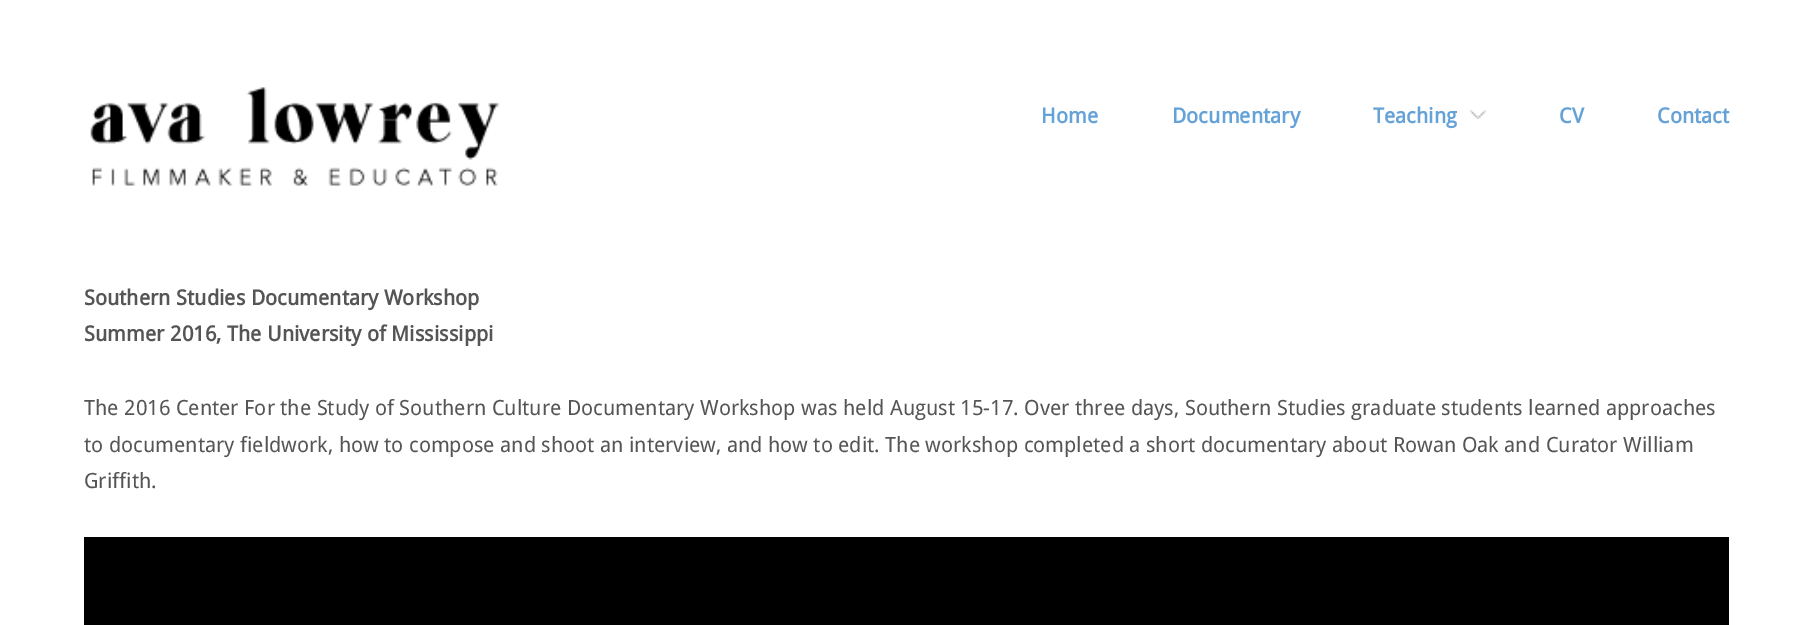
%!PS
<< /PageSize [1812 625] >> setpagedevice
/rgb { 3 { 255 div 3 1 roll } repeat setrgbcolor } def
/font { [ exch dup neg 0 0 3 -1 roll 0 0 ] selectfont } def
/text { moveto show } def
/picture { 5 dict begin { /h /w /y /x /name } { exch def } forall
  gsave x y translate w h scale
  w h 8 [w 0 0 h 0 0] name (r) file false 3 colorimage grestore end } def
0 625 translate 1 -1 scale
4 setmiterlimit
255 255 255 rgb
0 0 1812 625 rectfill
(img_01.rgb) 90 87 410 99 picture
(img_02.rgb) 1470 110 16 9 picture
0 0 0 rgb
84 537 1645 88 rectfill
/DroidSans-Bold 21 font
100 162 216 rgb
(Home) 1041 123 text
(Documentary) 1172 123 text
(Teaching) 1373 123 text
(CV) 1559 123 text
(Contact) 1657 123 text
85 85 85 rgb
(Southern Studies Documentary Workshop) 84 305 text
(Summer 2016, The University of Mississippi) 84 341 text
/DroidSans-Regular 21 font
(The 2016 Center For the Study of Southern Culture Documentary Workshop was held August 15-17. Over three days, Southern Studies graduate students learned approaches) 84 415 text
(to documentary fieldwork, how to compose and shoot an interview, and how to edit. The workshop completed a short documentary about Rowan Oak and Curator William) 84 452 text
(Griffith.) 84 488 text
showpage
